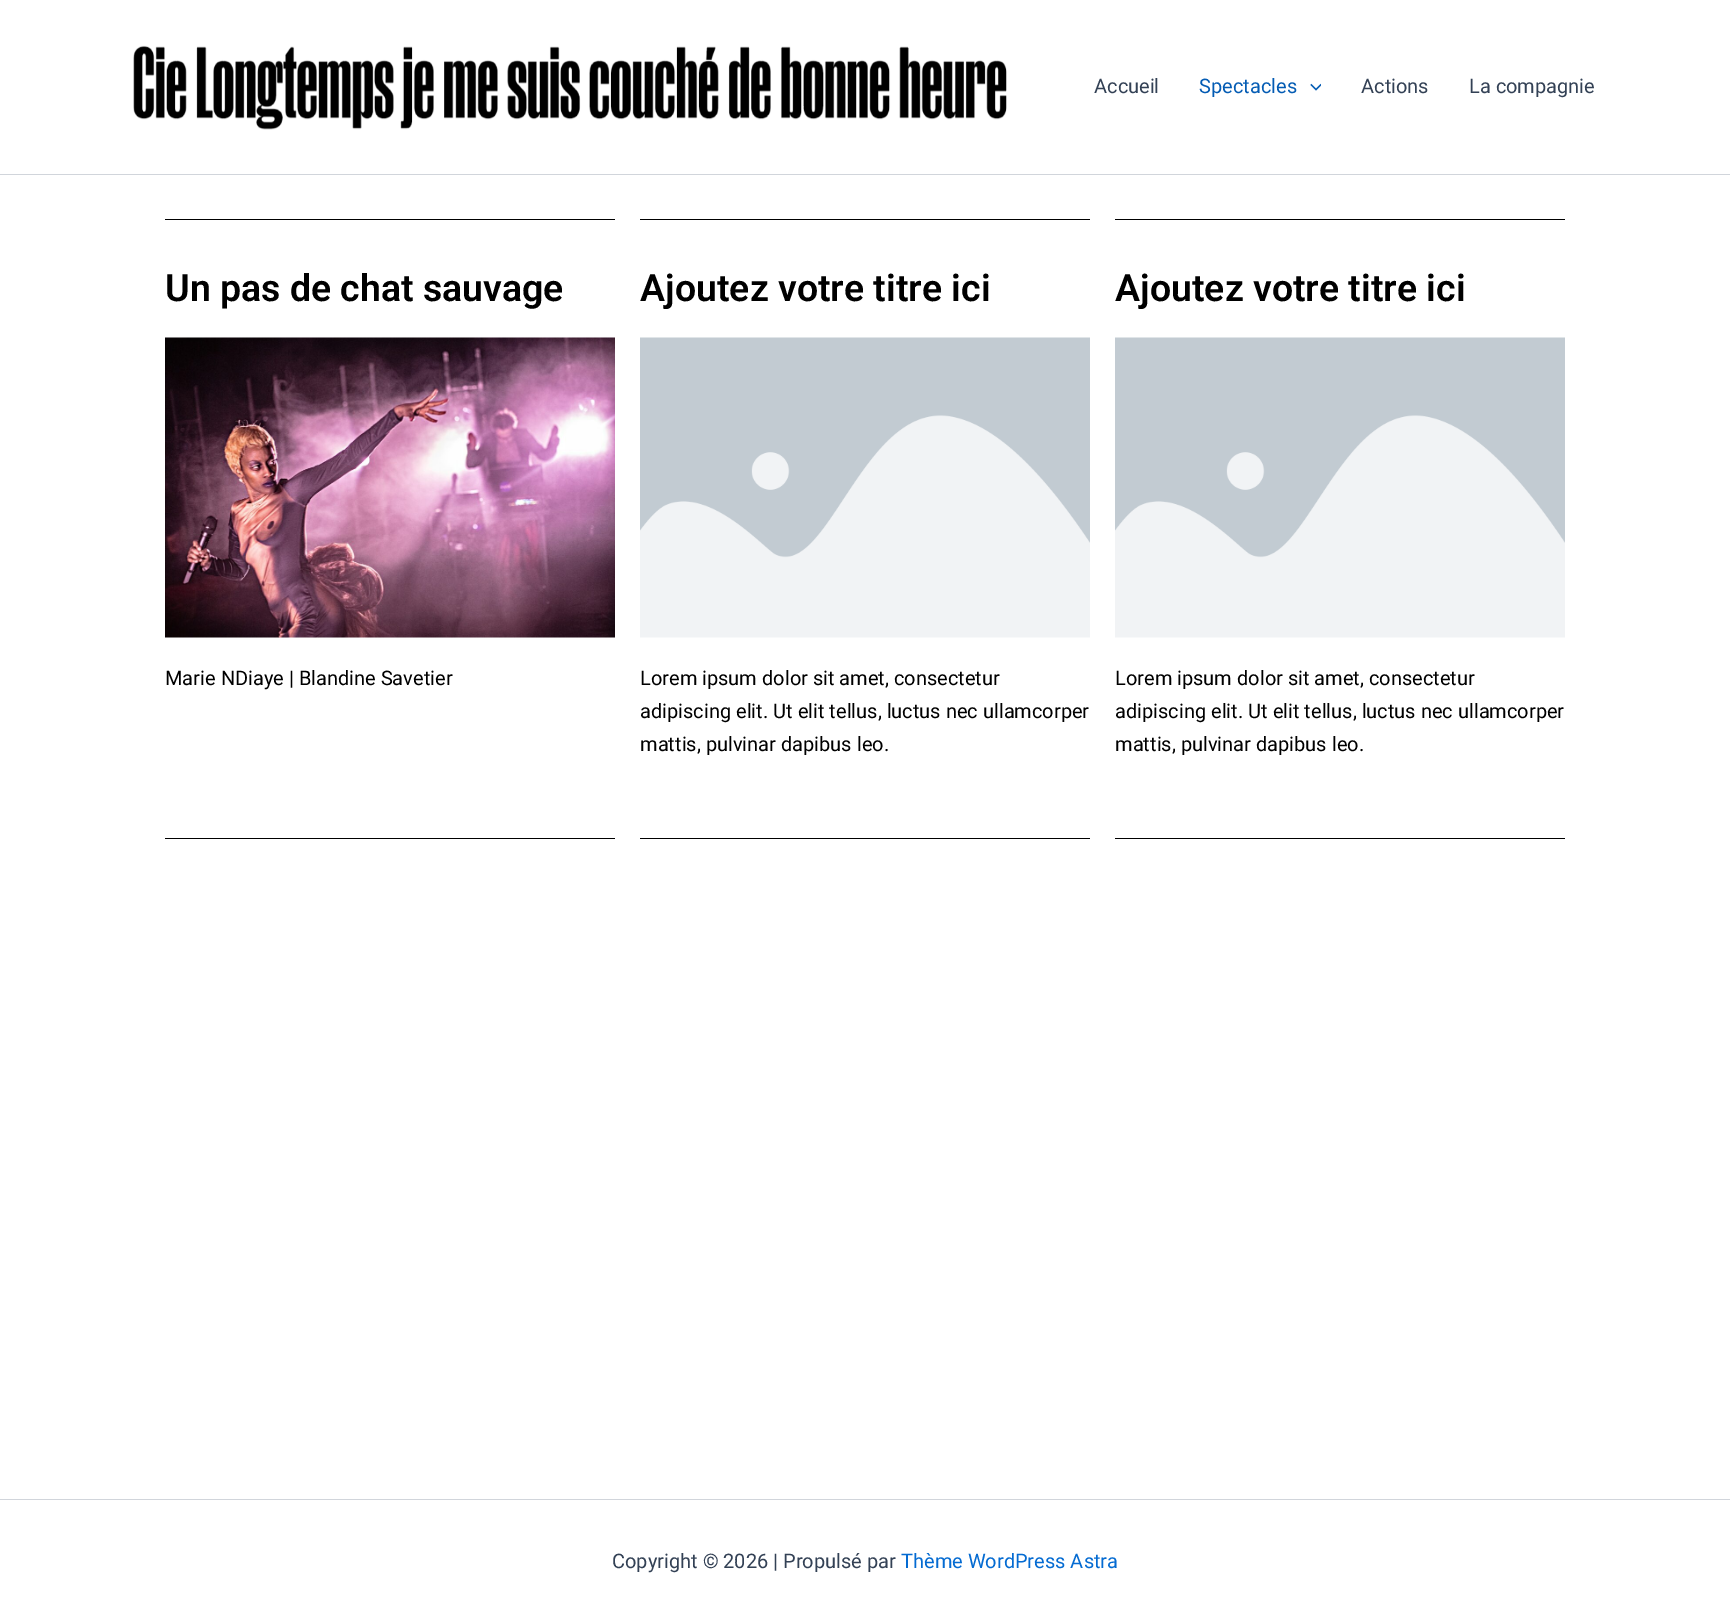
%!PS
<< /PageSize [1730 1624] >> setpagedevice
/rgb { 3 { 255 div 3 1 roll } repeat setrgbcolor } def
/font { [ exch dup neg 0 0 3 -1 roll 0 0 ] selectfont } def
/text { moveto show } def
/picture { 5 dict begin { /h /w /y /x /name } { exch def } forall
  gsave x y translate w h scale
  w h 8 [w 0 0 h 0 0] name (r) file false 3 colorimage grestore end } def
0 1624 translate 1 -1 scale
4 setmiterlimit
255 255 255 rgb
0 0 1730 1624 rectfill
209 213 219 rgb
0 174 1730 1 rectfill
(img_01.rgb) 133 45 874 85 picture
(img_02.rgb) 1310 83 11 8 picture
0 0 0 rgb
165 219 450 1 rectfill
(img_03.rgb) 165 337 450 301 picture
640 219 450 1 rectfill
(img_04.rgb) 640 337 450 301 picture
1115 219 450 1 rectfill
(img_04.rgb) 1115 337 450 301 picture
165 838 450 1 rectfill
640 838 450 1 rectfill
1115 838 450 1 rectfill
209 213 219 rgb
0 1499 1730 1 rectfill
/Roboto-Regular 20 font
51 65 85 rgb
(Accueil) 1094 93 text
4 92 180 rgb
(Spectacles) 1199 93 text
51 65 85 rgb
(Actions) 1361 93 text
(La compagnie) 1469 93 text
/Roboto-SemiBold 37.5 font
0 0 0 rgb
(Un pas de chat sauvage) 165 301 text
/Roboto-Regular 20 font
(Marie NDiaye | Blandine Savetier) 165 685 text
/Roboto-SemiBold 37.5 font
(Ajoutez votre titre ici) 640 301 text
/Roboto-Regular 20 font
(Lorem ipsum dolor sit amet, consectetur) 640 685 text
(adipiscing elit. Ut elit tellus, luctus nec ullamcorper) 640 718 text
(mattis, pulvinar dapibus leo.) 640 751 text
/Roboto-SemiBold 37.5 font
(Ajoutez votre titre ici) 1115 301 text
/Roboto-Regular 20 font
(Lorem ipsum dolor sit amet, consectetur) 1115 685 text
(adipiscing elit. Ut elit tellus, luctus nec ullamcorper) 1115 718 text
(mattis, pulvinar dapibus leo.) 1115 751 text
51 65 85 rgb
(Copyright © 2026 | Propulsé par) 612 1568 text
4 107 210 rgb
(Thème WordPress Astra) 901 1568 text
showpage
